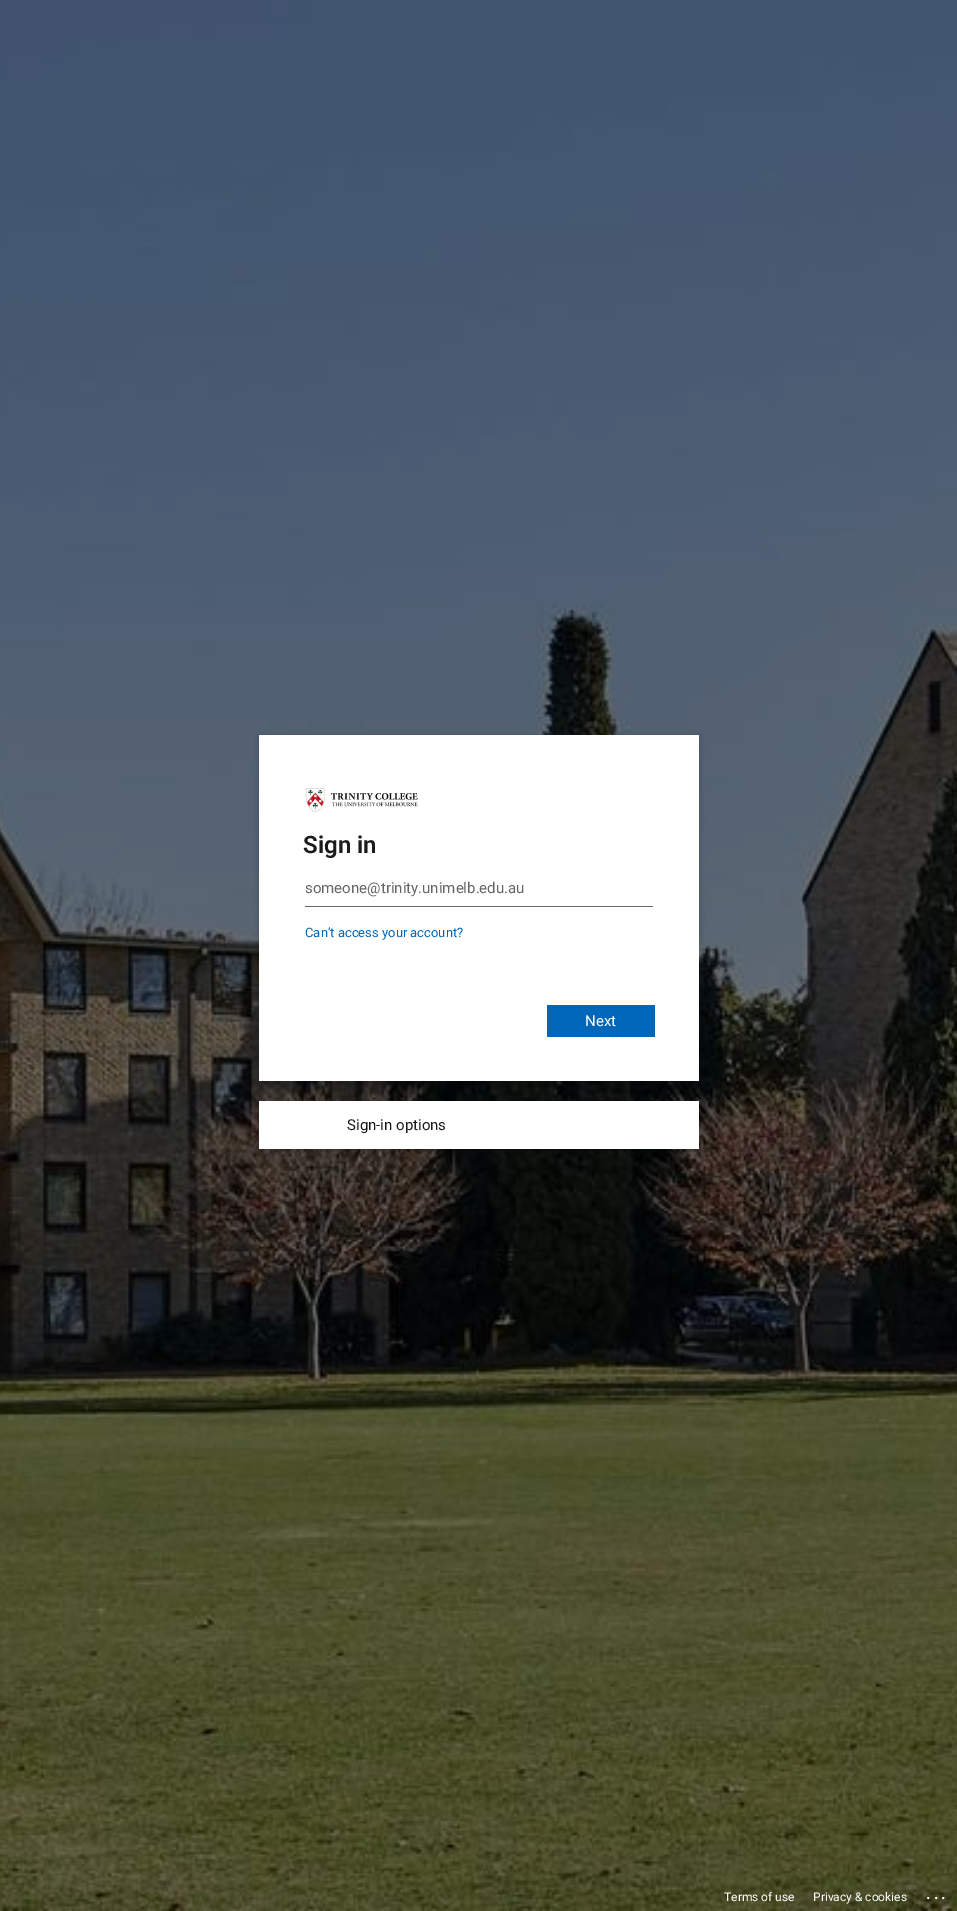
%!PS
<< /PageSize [957 1911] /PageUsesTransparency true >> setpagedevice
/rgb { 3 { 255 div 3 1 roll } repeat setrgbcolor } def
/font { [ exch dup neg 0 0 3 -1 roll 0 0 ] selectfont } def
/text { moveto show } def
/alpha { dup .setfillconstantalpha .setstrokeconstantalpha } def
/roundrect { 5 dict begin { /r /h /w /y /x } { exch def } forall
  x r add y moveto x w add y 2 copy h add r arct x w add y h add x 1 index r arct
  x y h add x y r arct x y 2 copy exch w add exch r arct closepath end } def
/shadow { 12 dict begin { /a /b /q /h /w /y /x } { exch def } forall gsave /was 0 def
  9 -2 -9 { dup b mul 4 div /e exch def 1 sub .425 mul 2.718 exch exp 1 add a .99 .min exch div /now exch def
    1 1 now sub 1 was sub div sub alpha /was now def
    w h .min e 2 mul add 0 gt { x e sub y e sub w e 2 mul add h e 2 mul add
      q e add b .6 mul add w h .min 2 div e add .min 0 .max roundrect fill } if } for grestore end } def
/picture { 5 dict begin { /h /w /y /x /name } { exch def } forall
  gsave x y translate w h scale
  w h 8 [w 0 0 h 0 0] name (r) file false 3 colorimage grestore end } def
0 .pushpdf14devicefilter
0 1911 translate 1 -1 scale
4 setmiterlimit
255 255 255 rgb
0 0 957 1911 rectfill
(img_01.rgb) 0 0 957 1911 picture
0 0 0 rgb
259 737 440 346 0 3 0.2 shadow
255 255 255 rgb
259 735 440 346 rectfill
(img_02.rgb) 305 788 113 25 picture
102 102 102 rgb
305 906 348 1 rectfill
0 103 184 rgb
547 1005 108 32 rectfill
0 0 0 rgb
259 1103 440 48 0 3 0.2 shadow
255 255 255 rgb
259 1101 440 48 rectfill
/Roboto-SemiBold 24 font
27 27 27 rgb
(Sign in) 303 853 text
/Roboto-Regular 15 font
102 102 102 rgb
(someone@trinity.unimelb.edu.au) 305 893 text
/Roboto-Regular 13 font
0 103 184 rgb
(Can’t access your account?) 305 937 text
/Roboto-Regular 15 font
255 255 255 rgb
(Next) 585 1026 text
27 27 27 rgb
(Sign-in options) 347 1130 text
/Roboto-Regular 12 font
255 255 255 rgb
(Terms of use) 724 1901 text
(Privacy & cookies) 813 1901 text
/Roboto-SemiBold 16 font
926 1899 moveto 3 0 (...) ashow
.poppdf14devicefilter showpage
